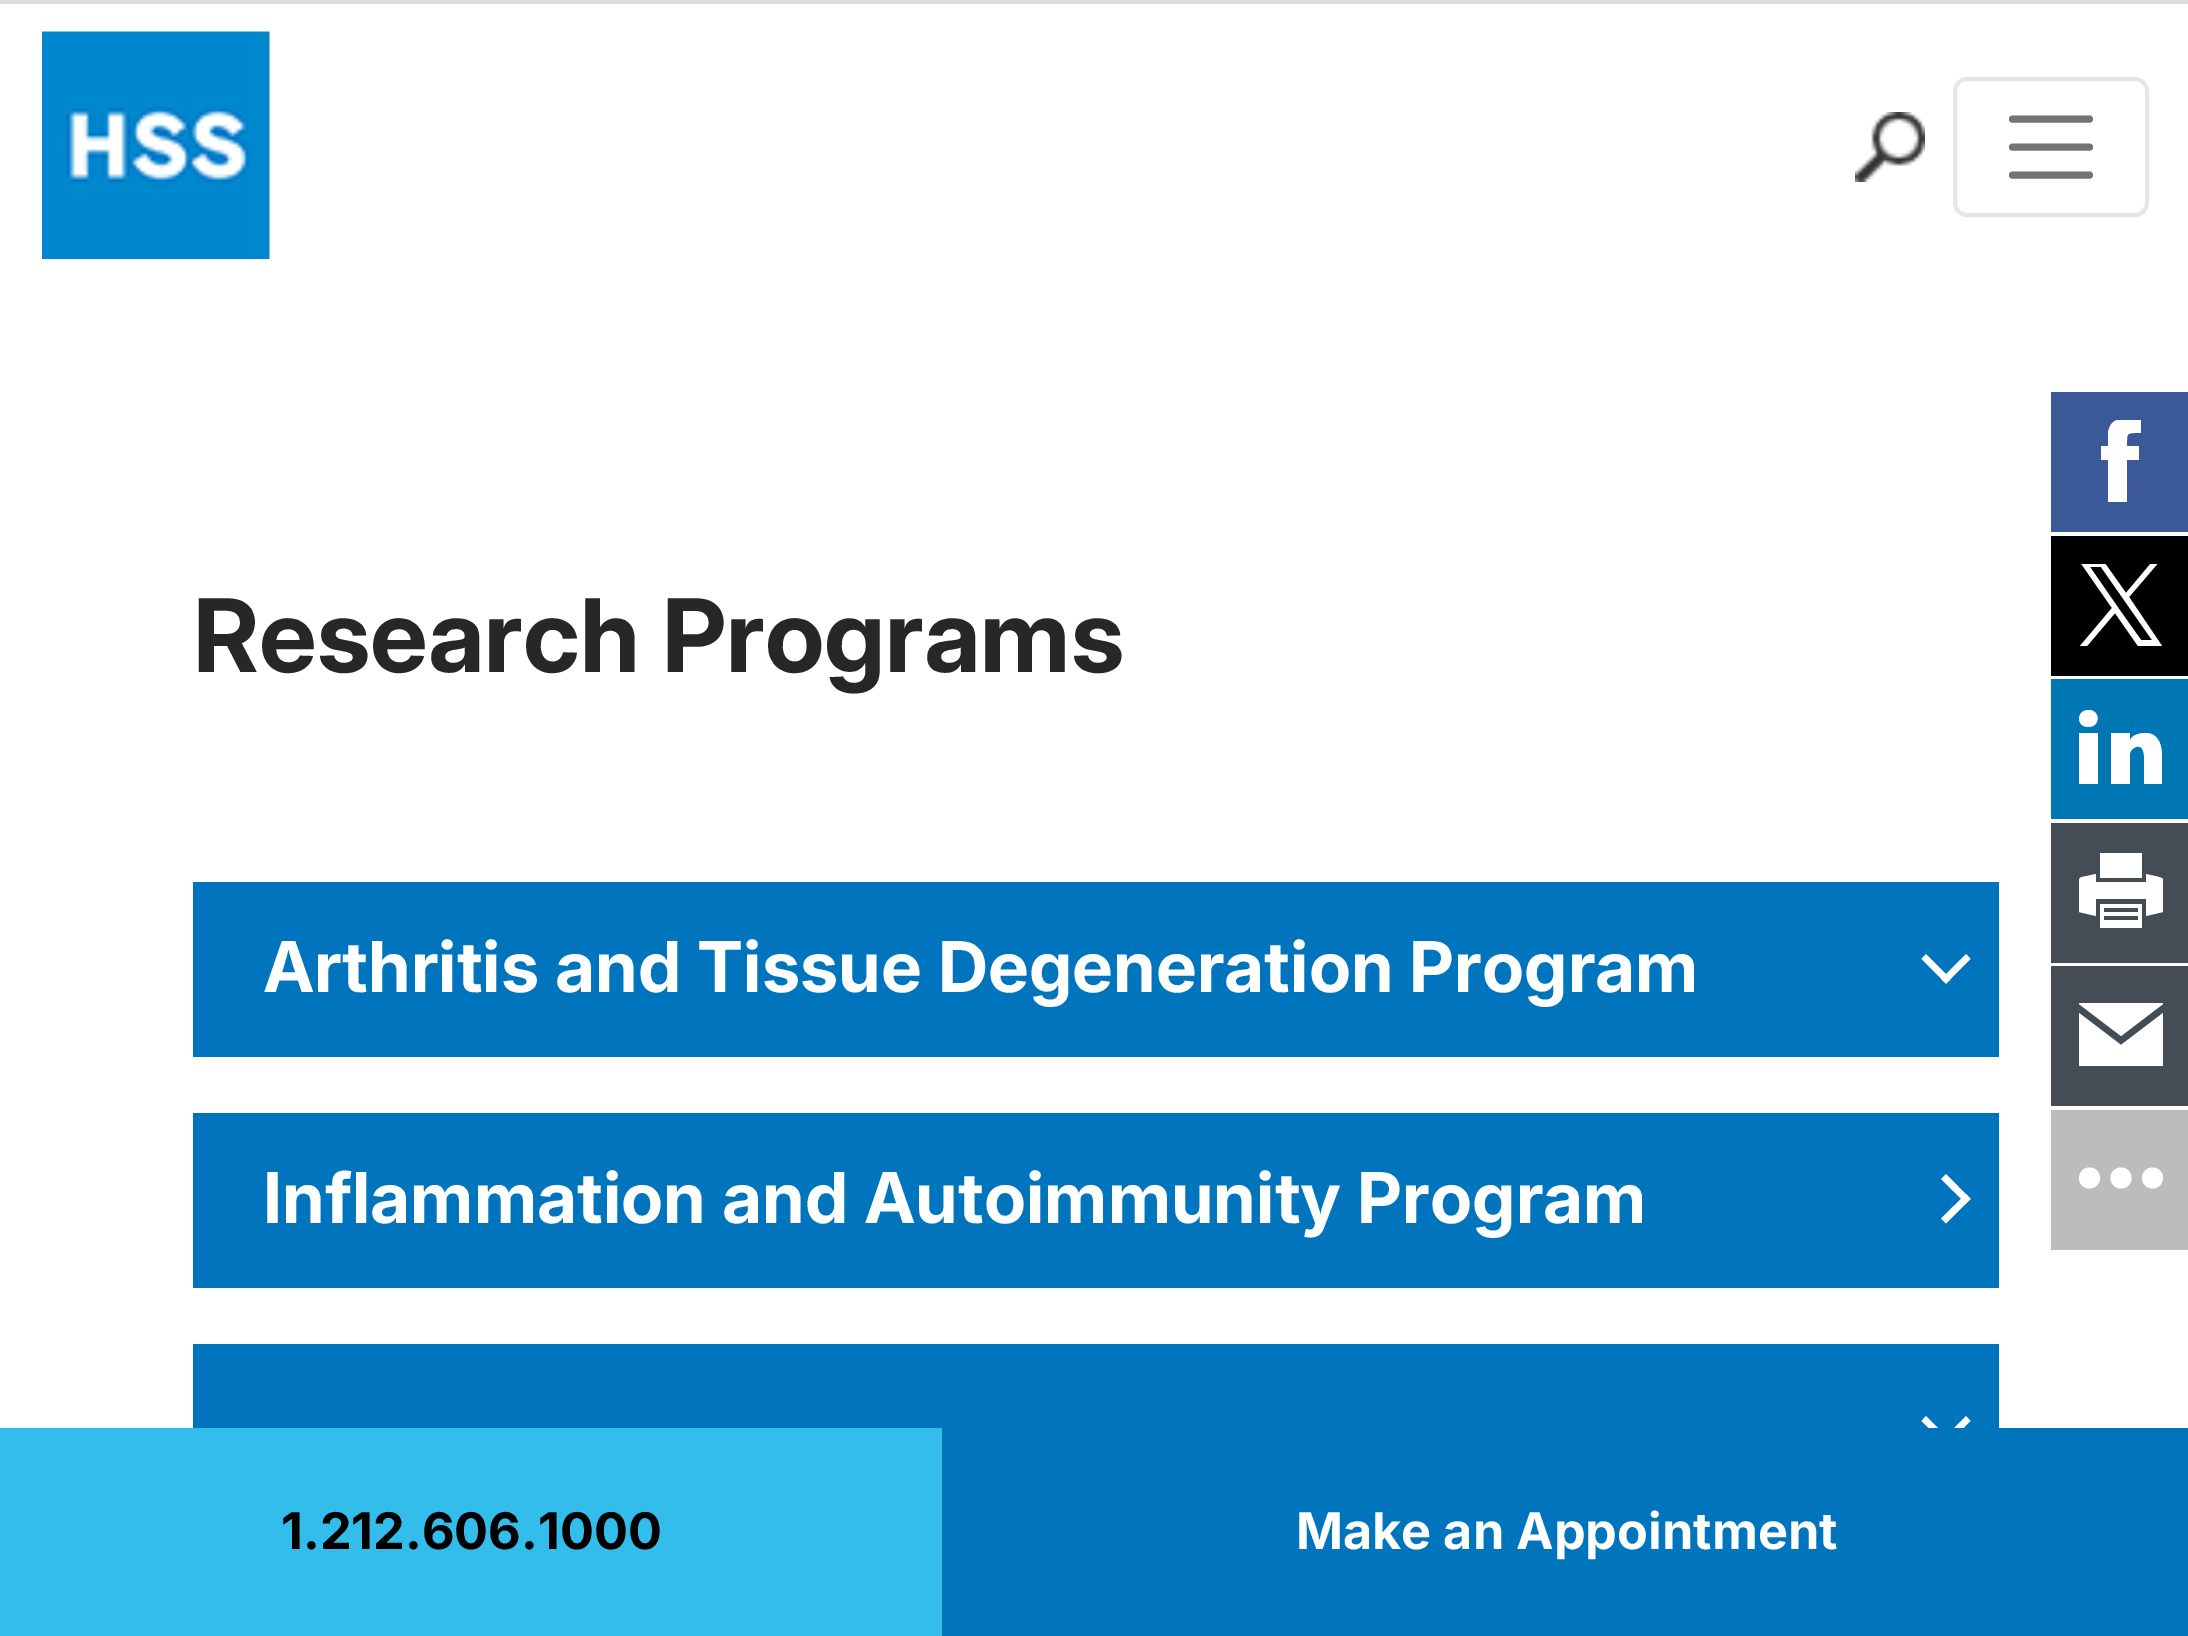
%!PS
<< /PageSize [2188 1636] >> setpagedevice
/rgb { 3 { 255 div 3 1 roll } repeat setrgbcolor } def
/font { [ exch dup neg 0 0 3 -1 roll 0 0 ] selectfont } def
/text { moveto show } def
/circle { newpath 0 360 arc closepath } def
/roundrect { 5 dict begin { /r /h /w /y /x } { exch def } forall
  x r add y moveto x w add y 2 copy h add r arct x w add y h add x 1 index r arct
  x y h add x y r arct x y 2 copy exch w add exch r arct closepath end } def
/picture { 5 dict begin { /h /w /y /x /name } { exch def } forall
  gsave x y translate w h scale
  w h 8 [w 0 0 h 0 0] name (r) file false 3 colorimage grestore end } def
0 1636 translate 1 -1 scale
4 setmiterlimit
255 255 255 rgb
0 0 2188 1636 rectfill
0 116 188 rgb
193 882 1806 175 rectfill
255 255 255 rgb
1966 954 moveto 4.5 5 rlineto -24.5 24.5 rlineto -5 -4.5 rlineto closepath fill
1926 954 moveto 25 25 rlineto -5 4.5 rlineto -24.5 -24.5 rlineto closepath fill
0 116 188 rgb
193 1113 1806 175 rectfill
255 255 255 rgb
1941 1179 moveto 5 -5 rlineto 24.5 25 rlineto -4.5 4.5 rlineto closepath fill
1941 1218.5 moveto 25 -24.5 rlineto 4.5 5 rlineto -24.5 24.5 rlineto closepath fill
0 116 188 rgb
193 1344 1806 84 rectfill
255 255 255 rgb
1966 1416 moveto 4.5 5 rlineto -24.5 24.5 rlineto -5 -4.5 rlineto closepath fill
1926 1416 moveto 25 25 rlineto -5 4.5 rlineto -24.5 -24.5 rlineto closepath fill
59 89 152 rgb
2051 392 137 140 rectfill
gsave
2079 420 84 84 rectclip
255 255 255 rgb
2141 433 moveto -15 0 -14 -1 -14 13 rcurveto 12 0 rlineto 0 14 rlineto -12 0 rlineto 0 42 rlineto -19 0 rlineto 0 -42 rlineto -7 0 rlineto 0 -14 rlineto 7 0 rlineto 0 -13 rlineto 2 -18 20 -15 33 -15 rcurveto closepath fill
grestore
0 0 0 rgb
2051 536 137 140 rectfill
gsave
2079 564 84 84 rectclip
255 255 255 rgb
2129 597 moveto 30 -35 rlineto -7 0 rlineto -26 31 rlineto -22 -31 rlineto -24 0 rlineto 32 46 rlineto -32 38 rlineto 7 0 rlineto 28 -33 rlineto 23 33 rlineto 24 0 rlineto closepath 2119 609 moveto -29 -42 rlineto 11 0 rlineto 51 73 rlineto -11 0 rlineto closepath fill
grestore
0 119 181 rgb
2051 679 137 140 rectfill
255 255 255 rgb
2079 733 19 51 rectfill
2088 727 moveto -12 0 -12 -17 0.5 -17 rcurveto 12 0 12.5 17 -0.5 17 rcurveto closepath fill
2163 784 moveto -19 0 rlineto 0 -18 rlineto 0 -5 2 -22 -8 -19 rcurveto -3 1 -5 3 -6 6 rcurveto 0 31 rlineto -19 0 rlineto 0 -51 rlineto 19 0 rlineto 0 7 rlineto 2 -4 7 -7 16 -7 rcurveto 9 0 16 7 16 23 rcurveto 0 28 rlineto closepath fill
68 77 85 rgb
2051 823 137 140 rectfill
gsave
2079 851 84 84 rectclip
255 255 255 rgb
2163 912 moveto -17 4 rlineto 0 -17 rlineto -50 0 rlineto 0 17 rlineto -17 -4 rlineto 0 -24 rlineto 0 -7 -2 -9 3 -11 rcurveto 14 -3 rlineto 0 8 rlineto 50 0 rlineto 0 -8 rlineto 3 1 16 3 17 5 rcurveto closepath fill
grestore
255 255 255 rgb
2100 853 42 25 rectfill
2100 904 moveto 42 0 rlineto 0 24 rlineto -42 0 rlineto closepath 2138 908 moveto -34 0 rlineto 0 4 rlineto 34 0 rlineto closepath 2138 916 moveto -34 0 rlineto 0 4 rlineto 34 0 rlineto closepath fill
68 77 85 rgb
2051 966 137 140 rectfill
255 255 255 rgb
2121 1045 moveto -42 -32 rlineto 0 53 rlineto 84 0 rlineto 0 -53 rlineto closepath fill
2121 1036 moveto 42 -32 rlineto 0 -1 rlineto -84 0 rlineto 0 1 rlineto closepath fill
188 188 188 rgb
2051 1110 137 140 rectfill
255 255 255 rgb
2089.5 1178 10.5 circle fill
2121 1178 10.5 circle fill
2152.5 1178 10.5 circle fill
221 221 218 rgb
0 0 2188 4 rectfill
(img_01.rgb) 42 31 228 228 picture
(img_02.rgb) 1855 112 70 70 picture
230 230 230 rgb
4 setlinewidth
1955 79 192 136 12 roundrect stroke
115 115 115 rgb
7 setlinewidth
1 setlinecap
2012.5 119 moveto 77 0 rlineto 2012.5 147 moveto 77 0 rlineto 2012.5 175 moveto 77 0 rlineto stroke
51 189 235 rgb
0 1428 942 208 rectfill
0 116 188 rgb
942 1428 1246 208 rectfill
/Inter-Bold 101.5 font
39 39 37 rgb
(Research Programs) 193 672 text
/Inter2-Bold 70 font
255 255 255 rgb
(Arthritis and Tissue Degeneration Program) 263 992 text
(Inflammation and Autoimmunity Program) 263 1223 text
/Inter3-Bold 50.4 font
0 0 0 rgb
(1.212.606.1000) 281 1549 text
255 255 255 rgb
(Make an Appointment) 1296 1549 text
showpage
